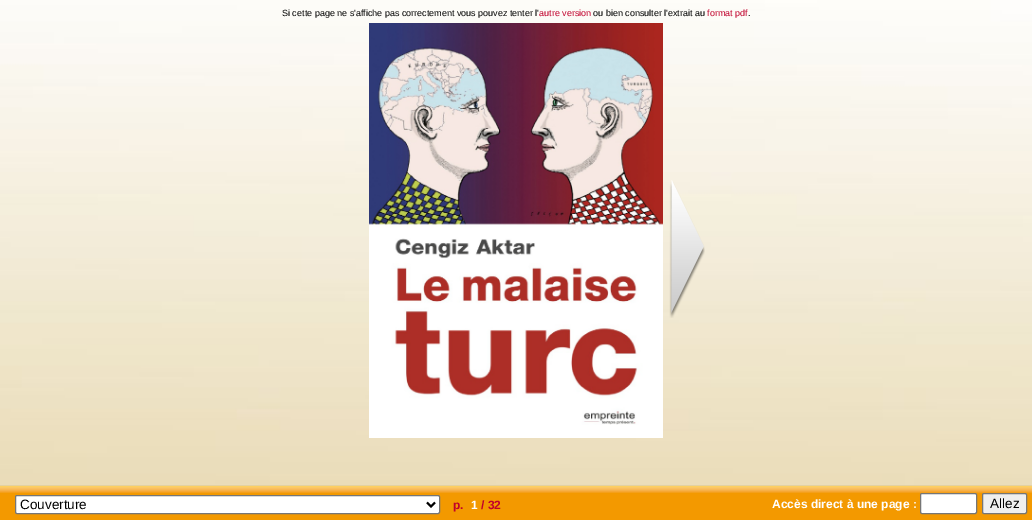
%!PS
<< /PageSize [1032 520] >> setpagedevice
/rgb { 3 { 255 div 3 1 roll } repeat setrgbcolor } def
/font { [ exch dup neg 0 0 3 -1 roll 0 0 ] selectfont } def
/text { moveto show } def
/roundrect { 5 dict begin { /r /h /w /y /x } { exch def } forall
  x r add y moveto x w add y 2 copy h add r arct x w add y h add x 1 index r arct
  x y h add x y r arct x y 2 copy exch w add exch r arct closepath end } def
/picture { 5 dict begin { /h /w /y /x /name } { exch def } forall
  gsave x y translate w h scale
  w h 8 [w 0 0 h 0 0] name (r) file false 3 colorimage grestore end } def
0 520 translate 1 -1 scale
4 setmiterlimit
255 255 255 rgb
0 0 1032 520 rectfill
(img_01.rgb) 0 0 1032 485 picture
369 425 294 13 rectfill
(img_02.rgb) 369 23 294 402 picture
(img_03.rgb) 669 180 36 138 picture
243 153 0 rgb
0 493 1032 27 rectfill
(img_04.rgb) 0 485 1032 8 picture
255 255 255 rgb
15.5 495.5 424 18 1.5 roundrect gsave fill grestore
118 118 118 rgb
stroke
0 0 0 rgb
2 setlinewidth
427 502.5 moveto 4 4 rlineto 4 -4 rlineto stroke
255 255 255 rgb
920.5 493.5 56 20 1.5 roundrect gsave fill grestore
118 118 118 rgb
1 setlinewidth
stroke
239 239 239 rgb
982.5 493.5 44 20 1.5 roundrect gsave fill grestore
118 118 118 rgb
stroke
/LiberationSans-Regular 9 font
0 0 0 rgb
(Si cette page ne s'affiche pas correctement vous pouvez tenter l') 282 16 text
193 0 43 rgb
(autre version) 539 16 text
0 0 0 rgb
(ou bien consulter l'extrait au) 593 16 text
193 0 43 rgb
(format pdf) 707 16 text
0 0 0 rgb
(.) 748 16 text
/LiberationSans-Regular 13.5 font
(Couverture) 20 509 text
/LiberationSans-Bold 12 font
193 0 43 rgb
(p.) 453 509 text
255 255 255 rgb
(1) 471 509 text
193 0 43 rgb
(/ 32) 481 509 text
255 255 255 rgb
(Accès direct à une page :) 772 508 text
/LiberationSans-Regular 13.5 font
0 0 0 rgb
(Allez) 990 508 text
showpage
